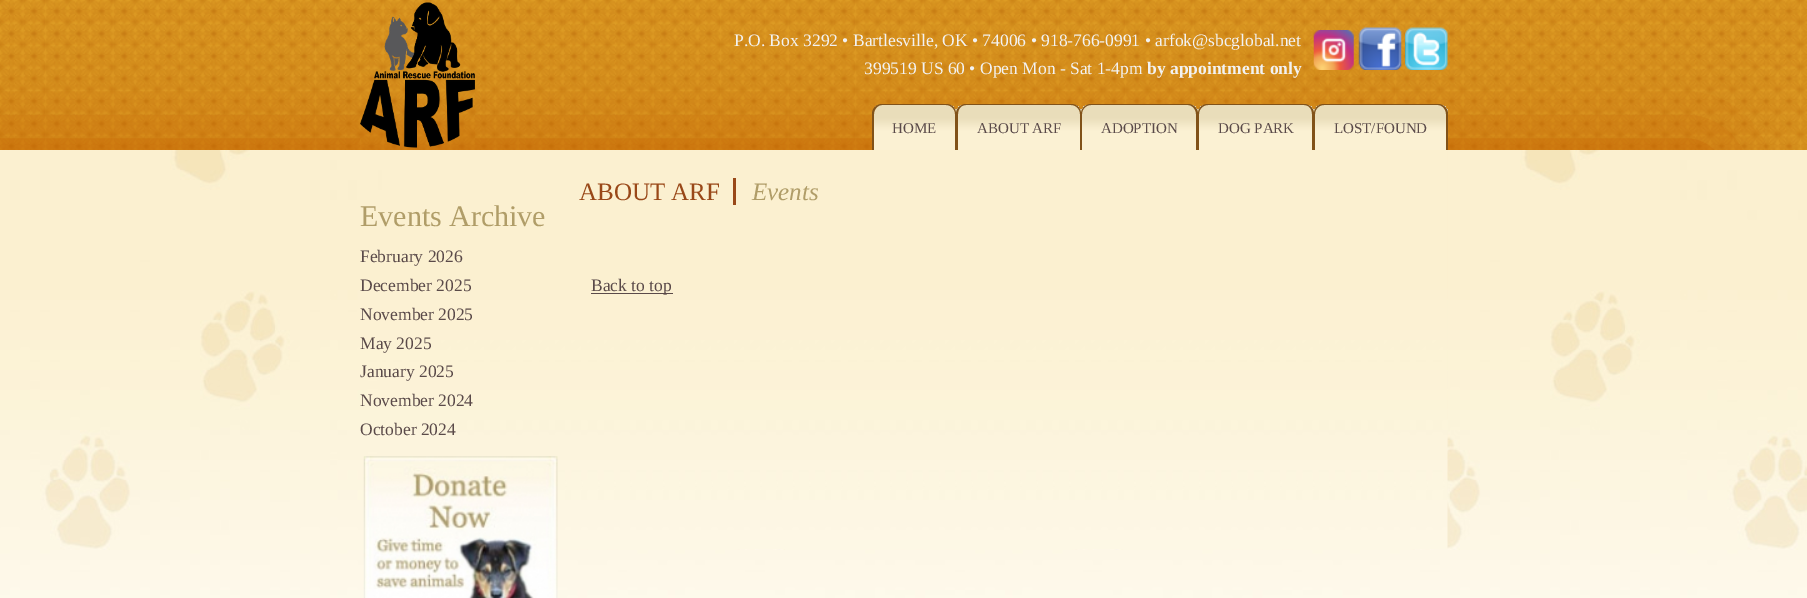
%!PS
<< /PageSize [1807 598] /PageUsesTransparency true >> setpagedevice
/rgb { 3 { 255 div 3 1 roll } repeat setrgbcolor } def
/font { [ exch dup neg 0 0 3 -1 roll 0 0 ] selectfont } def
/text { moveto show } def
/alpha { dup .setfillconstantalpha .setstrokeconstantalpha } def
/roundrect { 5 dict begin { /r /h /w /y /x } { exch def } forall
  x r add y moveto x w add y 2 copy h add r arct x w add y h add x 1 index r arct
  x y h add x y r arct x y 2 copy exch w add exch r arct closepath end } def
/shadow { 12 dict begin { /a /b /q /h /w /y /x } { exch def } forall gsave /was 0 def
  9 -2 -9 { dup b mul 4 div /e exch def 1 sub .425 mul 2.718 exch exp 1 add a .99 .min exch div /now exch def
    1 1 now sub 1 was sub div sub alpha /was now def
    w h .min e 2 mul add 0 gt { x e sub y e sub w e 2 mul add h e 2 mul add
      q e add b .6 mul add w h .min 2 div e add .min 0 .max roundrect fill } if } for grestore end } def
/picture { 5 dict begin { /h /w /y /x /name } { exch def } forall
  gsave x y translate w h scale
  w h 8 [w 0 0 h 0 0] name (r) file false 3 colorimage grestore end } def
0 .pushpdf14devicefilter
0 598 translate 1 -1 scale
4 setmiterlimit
255 255 255 rgb
0 0 1807 598 rectfill
(img_01.rgb) 0 0 1807 150 picture
196 96 0 rgb
-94 150 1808 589 0 47 1 shadow
(img_02.rgb) 360 2 115 146 picture
(img_03.rgb) 1313 30 41 40 picture
(img_04.rgb) 1358 27 44 43 picture
(img_05.rgb) 1405 27 43 43 picture
gsave
883 104 moveto 63 0 rlineto 5.5 0 10 4.5 10 10 rcurveto 0 36 rlineto -83 0 rlineto 0 -36 rlineto 0 -5.5 4.5 -10 10 -10 rcurveto closepath clip newpath
gsave 873 105 moveto 83 0 rlineto 0 45 rlineto -83 0 rlineto closepath clip newpath
<< /ShadingType 2 /ColorSpace /DeviceRGB /Coords [874 150 874 105] /Extend [true true] /Function << /FunctionType 3 /Domain [0 1] /Functions [<< /FunctionType 2 /Domain [0 1] /C0 [0.984 0.945 0.827] /C1 [0.984 0.945 0.827] /N 1 >> << /FunctionType 2 /Domain [0 1] /C0 [0.984 0.945 0.827] /C1 [0.914 0.867 0.729] /N 1 >> << /FunctionType 2 /Domain [0 1] /C0 [0.914 0.867 0.729] /C1 [0.914 0.867 0.729] /N 1 >>] /Bounds [0.43 0.72] /Encode [0 1 0 1 0 1] >> >> shfill grestore
grestore
129 82 25 rgb
882 104 moveto 64 0 rlineto 6 0 10 4 10 10 rcurveto 0 36 rlineto -84 0 rlineto 0 -36 rlineto 0 -6 5 -10 10 -10 rcurveto closepath 882 105 moveto 64 0 rlineto 5 0 9 4 9 9 rcurveto 0 36 rlineto -81 0 rlineto 0 -36 rlineto 0 -5 4 -9 8 -9 rcurveto closepath eofill
gsave
966 104 moveto 105 0 rlineto 5.5 0 10 4.5 10 10 rcurveto 0 36 rlineto -125 0 rlineto 0 -36 rlineto 0 -5.5 4.5 -10 10 -10 rcurveto closepath clip newpath
gsave 956 105 moveto 125 0 rlineto 0 45 rlineto -125 0 rlineto closepath clip newpath
<< /ShadingType 2 /ColorSpace /DeviceRGB /Coords [958 150 958 105] /Extend [true true] /Function << /FunctionType 3 /Domain [0 1] /Functions [<< /FunctionType 2 /Domain [0 1] /C0 [0.984 0.945 0.827] /C1 [0.984 0.945 0.827] /N 1 >> << /FunctionType 2 /Domain [0 1] /C0 [0.984 0.945 0.827] /C1 [0.914 0.867 0.729] /N 1 >> << /FunctionType 2 /Domain [0 1] /C0 [0.914 0.867 0.729] /C1 [0.914 0.867 0.729] /N 1 >>] /Bounds [0.43 0.72] /Encode [0 1 0 1 0 1] >> >> shfill grestore
grestore
966 104 moveto 105 0 rlineto 6 0 10 4 10 10 rcurveto 0 36 rlineto -125 0 rlineto 0 -36 rlineto 0 -6 5 -10 10 -10 rcurveto closepath 966 105 moveto 105 0 rlineto 5 0 9 4 9 9 rcurveto 0 36 rlineto -122 0 rlineto 0 -36 rlineto 0 -5 3 -9 8 -9 rcurveto closepath eofill
gsave
1091 104 moveto 97 0 rlineto 5.5 0 10 4.5 10 10 rcurveto 0 36 rlineto -117 0 rlineto 0 -36 rlineto 0 -5.5 4.5 -10 10 -10 rcurveto closepath clip newpath
gsave 1081 105 moveto 117 0 rlineto 0 45 rlineto -117 0 rlineto closepath clip newpath
<< /ShadingType 2 /ColorSpace /DeviceRGB /Coords [1083 150 1083 105] /Extend [true true] /Function << /FunctionType 3 /Domain [0 1] /Functions [<< /FunctionType 2 /Domain [0 1] /C0 [0.984 0.945 0.827] /C1 [0.984 0.945 0.827] /N 1 >> << /FunctionType 2 /Domain [0 1] /C0 [0.984 0.945 0.827] /C1 [0.914 0.867 0.729] /N 1 >> << /FunctionType 2 /Domain [0 1] /C0 [0.914 0.867 0.729] /C1 [0.914 0.867 0.729] /N 1 >>] /Bounds [0.43 0.72] /Encode [0 1 0 1 0 1] >> >> shfill grestore
grestore
1091 104 moveto 97 0 rlineto 5 0 10 4 10 10 rcurveto 0 36 rlineto -117 0 rlineto 0 -36 rlineto 0 -6 5 -10 10 -10 rcurveto closepath 1091 105 moveto 97 0 rlineto 4 0 8 4 8 9 rcurveto 0 36 rlineto -114 0 rlineto 0 -36 rlineto 0 -5 4 -9 9 -9 rcurveto closepath eofill
gsave
1208 104 moveto 96 0 rlineto 5.5 0 10 4.5 10 10 rcurveto 0 36 rlineto -116 0 rlineto 0 -36 rlineto 0 -5.5 4.5 -10 10 -10 rcurveto closepath clip newpath
gsave 1198 105 moveto 116 0 rlineto 0 45 rlineto -116 0 rlineto closepath clip newpath
<< /ShadingType 2 /ColorSpace /DeviceRGB /Coords [1199 150 1199 105] /Extend [true true] /Function << /FunctionType 3 /Domain [0 1] /Functions [<< /FunctionType 2 /Domain [0 1] /C0 [0.984 0.945 0.827] /C1 [0.984 0.945 0.827] /N 1 >> << /FunctionType 2 /Domain [0 1] /C0 [0.984 0.945 0.827] /C1 [0.914 0.867 0.729] /N 1 >> << /FunctionType 2 /Domain [0 1] /C0 [0.914 0.867 0.729] /C1 [0.914 0.867 0.729] /N 1 >>] /Bounds [0.43 0.72] /Encode [0 1 0 1 0 1] >> >> shfill grestore
grestore
1208 104 moveto 96 0 rlineto 5 0 10 4 10 10 rcurveto 0 36 rlineto -116 0 rlineto 0 -36 rlineto 0 -6 4 -10 10 -10 rcurveto closepath 1208 105 moveto 96 0 rlineto 5 0 8 4 8 9 rcurveto 0 36 rlineto -113 0 rlineto 0 -36 rlineto 0 -5 4 -9 9 -9 rcurveto closepath eofill
gsave
1324 104 moveto 114 0 rlineto 5.5 0 10 4.5 10 10 rcurveto 0 36 rlineto -134 0 rlineto 0 -36 rlineto 0 -5.5 4.5 -10 10 -10 rcurveto closepath clip newpath
gsave 1314 105 moveto 134 0 rlineto 0 45 rlineto -134 0 rlineto closepath clip newpath
<< /ShadingType 2 /ColorSpace /DeviceRGB /Coords [1315 150 1315 105] /Extend [true true] /Function << /FunctionType 3 /Domain [0 1] /Functions [<< /FunctionType 2 /Domain [0 1] /C0 [0.984 0.945 0.827] /C1 [0.984 0.945 0.827] /N 1 >> << /FunctionType 2 /Domain [0 1] /C0 [0.984 0.945 0.827] /C1 [0.914 0.867 0.729] /N 1 >> << /FunctionType 2 /Domain [0 1] /C0 [0.914 0.867 0.729] /C1 [0.914 0.867 0.729] /N 1 >>] /Bounds [0.43 0.72] /Encode [0 1 0 1 0 1] >> >> shfill grestore
grestore
1324 104 moveto 114 0 rlineto 5 0 10 4 10 10 rcurveto 0 36 rlineto -134 0 rlineto 0 -36 rlineto 0 -6 4 -10 10 -10 rcurveto closepath 1324 105 moveto 114 0 rlineto 4 0 8 4 8 9 rcurveto 0 36 rlineto -131 0 rlineto 0 -36 rlineto 0 -5 4 -9 9 -9 rcurveto closepath eofill
(img_06.rgb) 0 150 1807 448 picture
(img_07.rgb) 382 150 1066 399 picture
(img_08.rgb) 363 456 195 142 picture
153 72 24 rgb
733 178 3 27 rectfill
90 74 73 rgb
591 293 82 1 rectfill
/LiberationSerif-Regular 17.5 font
242 242 242 rgb
(P.O. Box 3292 • Bartlesville, OK • 74006 • 918-766-0991 • arfok@sbcglobal.net) 734 46 text
(399519 US 60 • Open Mon - Sat 1-4pm) 864 74 text
/LiberationSerif-Bold 17.5 font
(by appointment only) 1147 74 text
/LiberationSerif-Regular 15 font
90 74 73 rgb
(HOME) 892 133 text
(ABOUT ARF) 977 133 text
(ADOPTION) 1101 133 text
(DOG PARK) 1218 133 text
(LOST/FOUND) 1334 133 text
/LiberationSerif-Regular 30 font
176 157 104 rgb
(Events Archive) 360 226 text
/LiberationSerif-Regular 17.5 font
90 74 73 rgb
(February 2026) 360 262 text
(December 2025) 360 291 text
(November 2025) 360 320 text
(May 2025) 360 349 text
(January 2025) 360 377 text
(November 2024) 360 406 text
(October 2024) 360 435 text
/LiberationSerif-Regular 25 font
153 72 24 rgb
(ABOUT ARF) 579 200 text
/LiberationSerif-Italic 25 font
176 157 104 rgb
(Events) 752 200 text
/LiberationSerif-Regular 17.5 font
90 74 73 rgb
(Back to top) 591 291 text
.poppdf14devicefilter showpage
